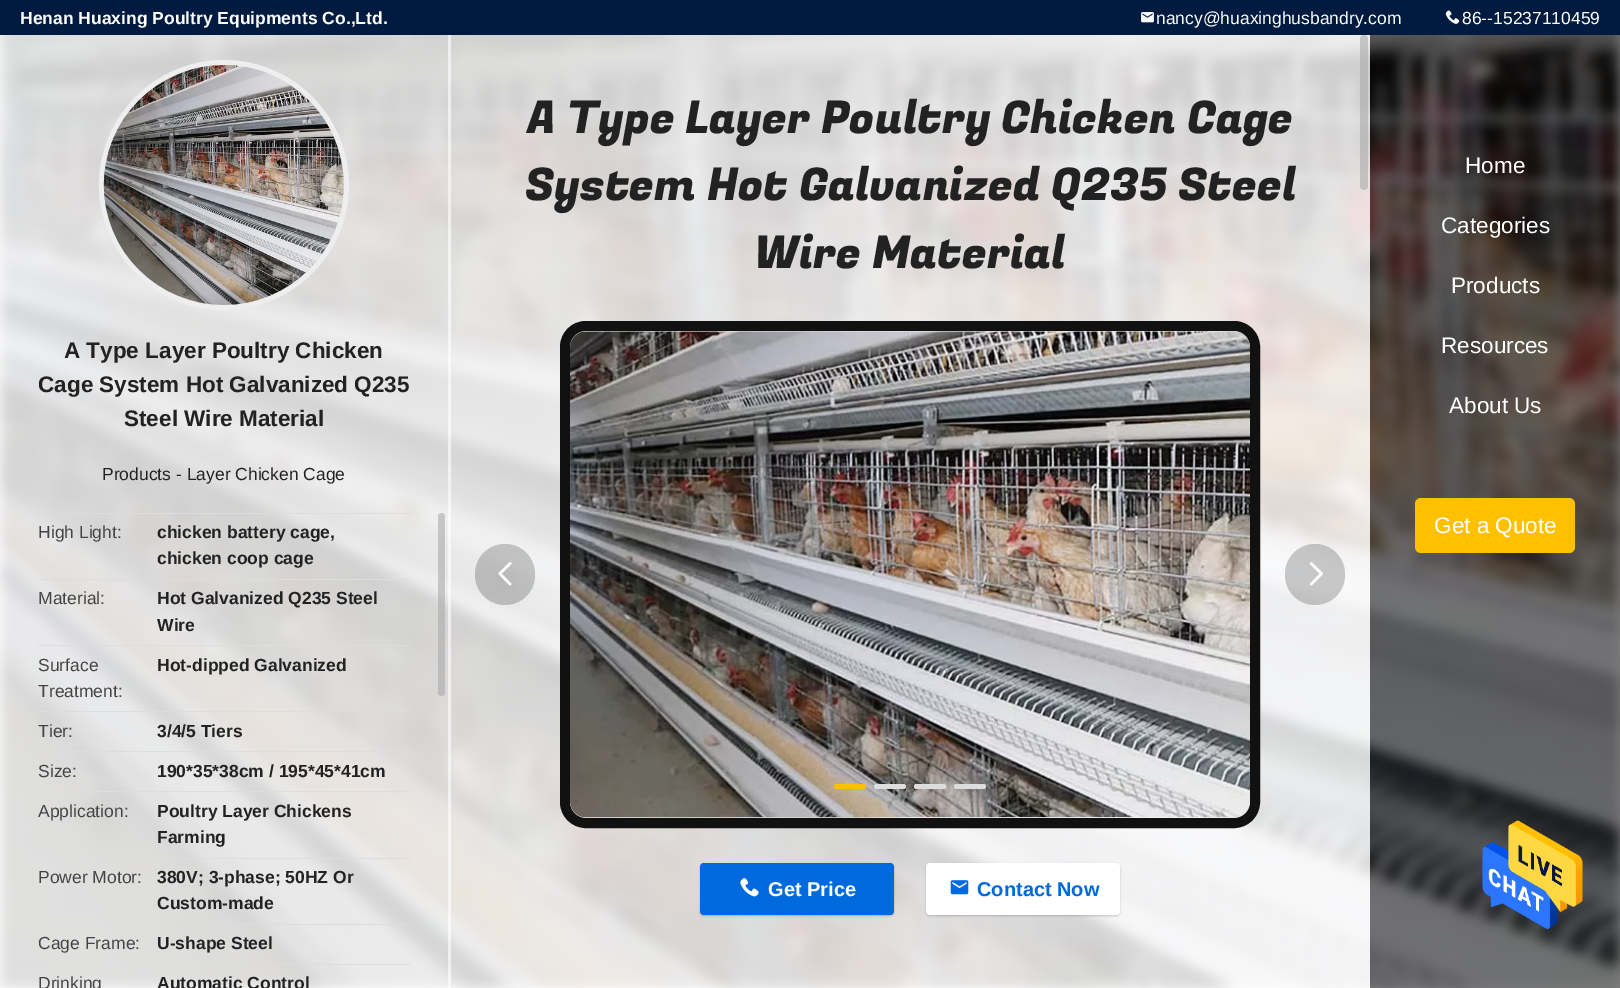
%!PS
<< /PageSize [1620 988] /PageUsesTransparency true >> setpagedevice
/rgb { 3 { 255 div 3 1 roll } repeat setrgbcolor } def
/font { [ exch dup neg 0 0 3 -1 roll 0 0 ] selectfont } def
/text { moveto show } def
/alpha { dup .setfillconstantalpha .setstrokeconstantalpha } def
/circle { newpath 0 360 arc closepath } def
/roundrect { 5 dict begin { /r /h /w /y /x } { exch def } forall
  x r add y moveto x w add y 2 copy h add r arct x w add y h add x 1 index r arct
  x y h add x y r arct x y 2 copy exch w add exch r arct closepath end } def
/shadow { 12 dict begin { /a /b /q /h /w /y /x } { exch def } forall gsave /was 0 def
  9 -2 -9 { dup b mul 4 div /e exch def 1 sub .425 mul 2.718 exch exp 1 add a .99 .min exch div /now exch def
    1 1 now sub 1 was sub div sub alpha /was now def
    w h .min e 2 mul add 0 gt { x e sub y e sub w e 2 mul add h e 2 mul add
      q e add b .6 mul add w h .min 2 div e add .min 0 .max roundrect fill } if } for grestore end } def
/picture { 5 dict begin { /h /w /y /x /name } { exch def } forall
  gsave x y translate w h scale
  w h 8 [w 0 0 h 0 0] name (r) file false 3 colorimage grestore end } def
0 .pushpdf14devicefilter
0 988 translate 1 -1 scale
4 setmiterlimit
255 255 255 rgb
0 0 1620 988 rectfill
0 27 63 rgb
0 0 1620 35 rectfill
(img_01.rgb) 1141 12 13 11 picture
(img_02.rgb) 1445 10 15 14 picture
(img_03.rgb) 0 35 1620 953 picture
0.8 alpha
255 255 255 rgb
0 35 450 953 rectfill
0.6 alpha
448 35 3 953 rectfill
1 alpha
238 238 238 rgb
5 setlinewidth
224 185 122.5 circle stroke
(img_04.rgb) 103 65 241 240 picture
221 221 221 rgb
54 513 356 1 rectfill
38 579 372 1 rectfill
38 645 372 1 rectfill
38 711 372 1 rectfill
72 751 338 1 rectfill
91 791 319 1 rectfill
173 858 237 1 rectfill
38 924 372 1 rectfill
38 964 372 1 rectfill
0.6 alpha
170 170 170 rgb
438 513 7 183 3.5 roundrect fill
0.8 alpha
255 255 255 rgb
450 35 920 953 rectfill
0.6 alpha
170 170 170 rgb
1360 35 8 155 4 roundrect fill
1 alpha
17 17 17 rgb
10 setlinewidth
565 326 690 497 21 roundrect stroke
(img_05.rgb) 570 331 680 487 picture
0.2 alpha
0 0 0 rgb
475 544 60 61 30 roundrect fill
1 alpha
(img_06.rgb) 498 562 14 24 picture
0.2 alpha
1285 544 60 61 30 roundrect fill
1 alpha
(img_07.rgb) 1309 562 14 24 picture
255 192 0 rgb
834 784 32 5 2.5 roundrect fill
221 221 221 rgb
874 784 32 5 2.5 roundrect fill
914 784 32 5 2.5 roundrect fill
954 784 32 5 2.5 roundrect fill
0 0 0 rgb
700 864 194 52 4 1 0.2 shadow
0 105 222 rgb
700 863 194 52 4 roundrect fill
(img_08.rgb) 740 878 19 19 picture
0 0 0 rgb
926 864 194 52 4 1 0.2 shadow
255 255 255 rgb
926 863 194 52 4 roundrect fill
(img_09.rgb) 950 880 19 15 picture
0.5 alpha
0 0 0 rgb
1370 35 250 953 rectfill
1 alpha
255 192 0 rgb
1415 498 160 55 6 roundrect fill
(img_10.rgb) 1482 820 101 110 picture
/LiberationSans-Bold 17.5 font
255 255 255 rgb
(Henan Huaxing Poultry Equipments Co.,Ltd.) 20 24 text
/LiberationSans-Regular 17.5 font
(nancy@huaxinghusbandry.com) 1156 24 text
(86--15237110459) 1462 24 text
/LiberationSans-Bold 22.5 font
34 34 34 rgb
(A Type Layer Poultry Chicken) 64 358 text
(Cage System Hot Galvanized Q235) 38 392 text
(Steel Wire Material) 124 426 text
/LiberationSans-Regular 17.5 font
(Products - Layer Chicken Cage) 102 480 text
68 68 68 rgb
(High Light:) 38 538 text
/LiberationSans-Bold 17.5 font
34 34 34 rgb
(chicken battery cage,) 157 538 text
(chicken coop cage) 157 564 text
/LiberationSans-Regular 17.5 font
68 68 68 rgb
(Material:) 38 604 text
/LiberationSans-Bold 17.5 font
34 34 34 rgb
(Hot Galvanized Q235 Steel) 157 604 text
(Wire) 157 631 text
/LiberationSans-Regular 17.5 font
68 68 68 rgb
(Surface) 38 671 text
(Treatment:) 38 697 text
/LiberationSans-Bold 17.5 font
34 34 34 rgb
(Hot-dipped Galvanized) 157 671 text
/LiberationSans-Regular 17.5 font
68 68 68 rgb
(Tier:) 38 737 text
/LiberationSans-Bold 17.5 font
34 34 34 rgb
(3/4/5 Tiers) 157 737 text
/LiberationSans-Regular 17.5 font
68 68 68 rgb
(Size:) 38 777 text
/LiberationSans-Bold 17.5 font
34 34 34 rgb
(190*35*38cm / 195*45*41cm) 157 777 text
/LiberationSans-Regular 17.5 font
68 68 68 rgb
(Application:) 38 817 text
/LiberationSans-Bold 17.5 font
34 34 34 rgb
(Poultry Layer Chickens) 157 817 text
(Farming) 157 843 text
/LiberationSans-Regular 17.5 font
68 68 68 rgb
(Power Motor:) 38 883 text
/LiberationSans-Bold 17.5 font
34 34 34 rgb
(380V; 3-phase; 50HZ Or) 157 883 text
(Custom-made) 157 909 text
/LiberationSans-Regular 17.5 font
68 68 68 rgb
(Cage Frame:) 38 949 text
/LiberationSans-Bold 17.5 font
34 34 34 rgb
(U-shape Steel) 157 949 text
/LiberationSans-Regular 17.5 font
68 68 68 rgb
(Drinking) 38 989 text
/LiberationSans-Bold 17.5 font
34 34 34 rgb
(Automatic Control) 157 989 text
/FugazOne-Regular 45 font
(A Type Layer Poultry Chicken Cage) 527 133 text
(System Hot Galvanized Q235 Steel) 525 200 text
(Wire Material) 754 268 text
/LiberationSans-Bold 20 font
255 255 255 rgb
(Get Price) 768 896 text
0 105 222 rgb
(Contact Now) 977 896 text
/LiberationSans-Regular 22.5 font
255 255 255 rgb
(Home) 1465 173 text
(Categories) 1441 233 text
(Products) 1451 293 text
(Resources) 1441 353 text
(About Us) 1449 413 text
(Get a Quote) 1434 533 text
.poppdf14devicefilter showpage
